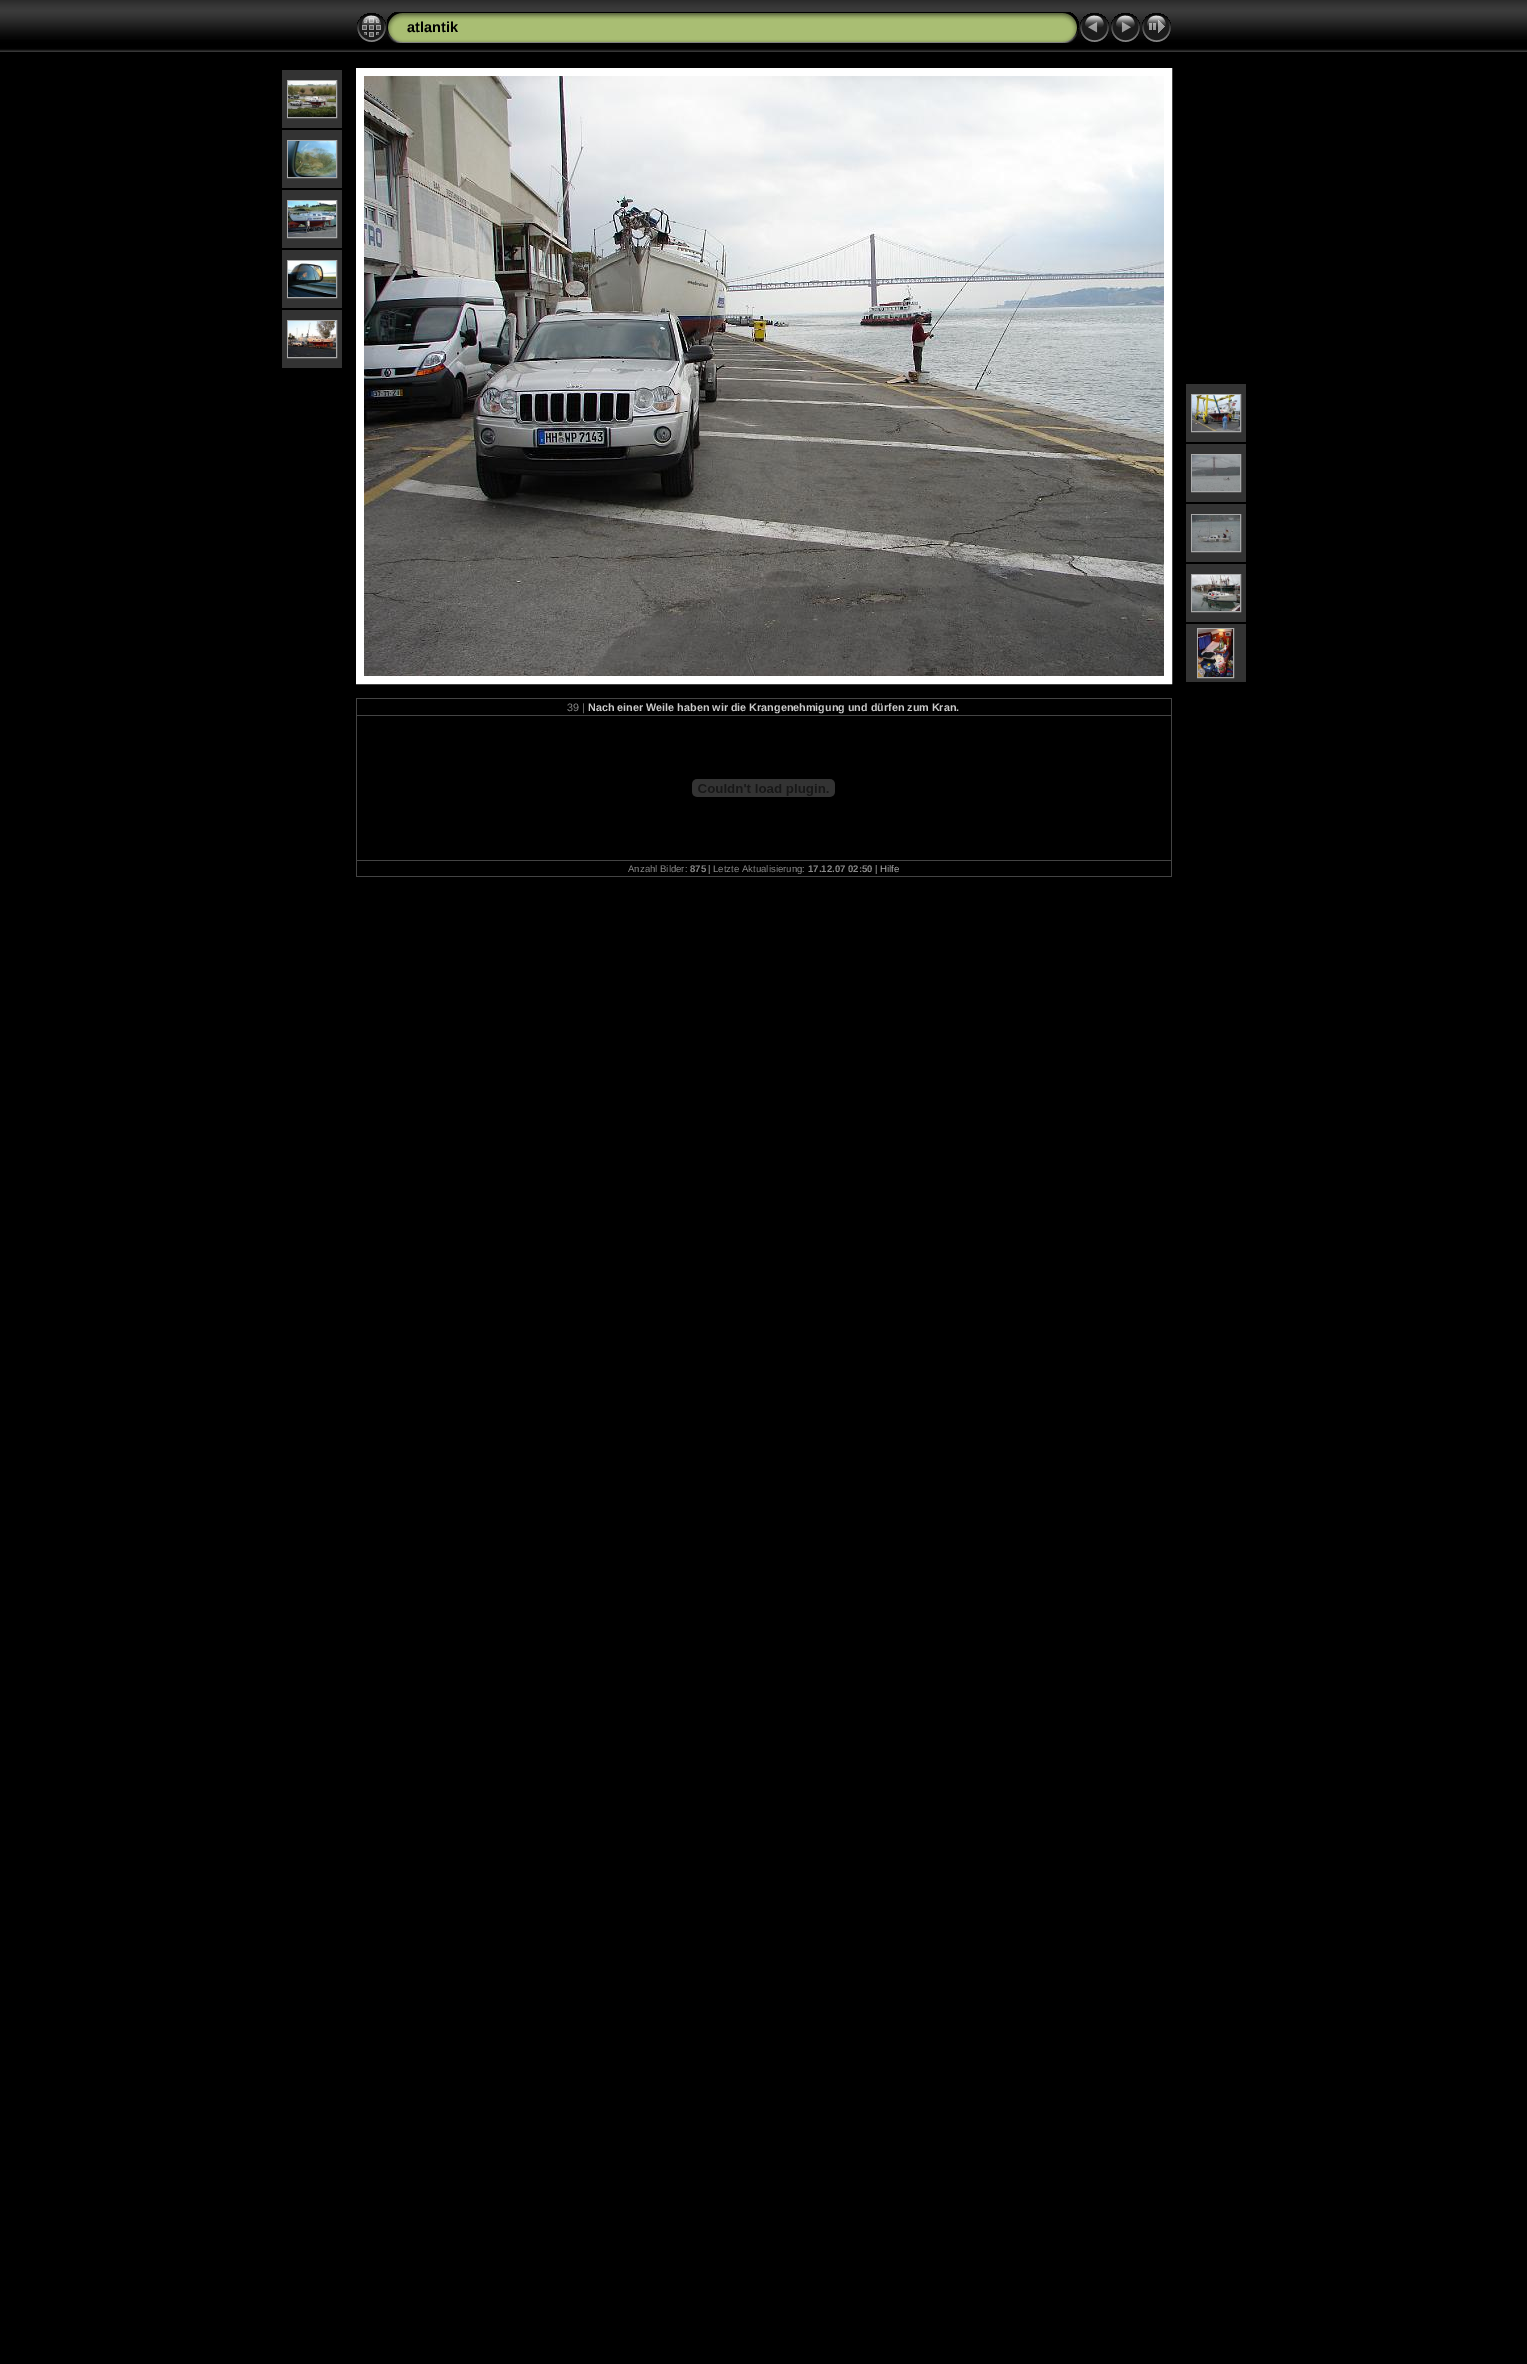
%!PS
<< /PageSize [1527 2364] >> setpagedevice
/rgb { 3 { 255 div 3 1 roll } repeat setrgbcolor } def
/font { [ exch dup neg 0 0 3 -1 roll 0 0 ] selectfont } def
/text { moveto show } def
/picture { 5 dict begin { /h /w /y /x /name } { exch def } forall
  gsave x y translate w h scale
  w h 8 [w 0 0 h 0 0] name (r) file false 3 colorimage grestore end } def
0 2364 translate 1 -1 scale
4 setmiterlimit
0 0 0 rgb
0 0 1527 2364 rectfill
(img_01.rgb) 0 0 1527 52 picture
(img_02.rgb) 357 13 29 29 picture
(img_03.rgb) 387 12 20 31 picture
(img_04.rgb) 407 12 652 31 picture
(img_05.rgb) 1059 12 20 31 picture
(img_06.rgb) 1080 13 29 29 picture
(img_07.rgb) 1111 13 29 29 picture
(img_08.rgb) 1142 13 29 29 picture
51 51 51 rgb
282 70 60 58 rectfill
170 170 170 rgb
287.5 80.5 49 37 rectstroke
(img_09.rgb) 288 81 48 36 picture
51 51 51 rgb
282 130 60 58 rectfill
170 170 170 rgb
287.5 140.5 49 37 rectstroke
(img_10.rgb) 288 141 48 36 picture
51 51 51 rgb
282 190 60 58 rectfill
170 170 170 rgb
287.5 200.5 49 37 rectstroke
(img_11.rgb) 288 201 48 36 picture
51 51 51 rgb
282 250 60 58 rectfill
170 170 170 rgb
287.5 260.5 49 37 rectstroke
(img_12.rgb) 288 261 48 36 picture
51 51 51 rgb
282 310 60 58 rectfill
170 170 170 rgb
287.5 320.5 49 37 rectstroke
(img_13.rgb) 288 321 48 36 picture
255 255 255 rgb
8 setlinewidth
360 72 808 608 rectstroke
(img_14.rgb) 364 76 800 600 picture
51 51 51 rgb
1186 384 60 58 rectfill
170 170 170 rgb
1 setlinewidth
1191.5 394.5 49 37 rectstroke
(img_15.rgb) 1192 395 48 36 picture
51 51 51 rgb
1186 444 60 58 rectfill
170 170 170 rgb
1191.5 454.5 49 37 rectstroke
(img_16.rgb) 1192 455 48 36 picture
51 51 51 rgb
1186 504 60 58 rectfill
170 170 170 rgb
1191.5 514.5 49 37 rectstroke
(img_17.rgb) 1192 515 48 36 picture
51 51 51 rgb
1186 564 60 58 rectfill
170 170 170 rgb
1191.5 574.5 49 37 rectstroke
(img_18.rgb) 1192 575 48 36 picture
51 51 51 rgb
1186 624 60 58 rectfill
170 170 170 rgb
1197.5 628.5 36 49 rectstroke
(img_19.rgb) 1198 629 35 48 picture
68 68 68 rgb
356 698 816 1 rectfill
1171 698 1 179 rectfill
356 876 816 1 rectfill
356 698 1 179 rectfill
356 715 816 1 rectfill
(img_20.rgb) 692 779 143 18 picture
356 860 816 1 rectfill
/LiberationSans-Bold 14.5 font
0 0 0 rgb
(atlantik) 407 32 text
/LiberationSans-Regular 10.8 font
136 136 136 rgb
(39 |) 567 711 text
/LiberationSans-Bold 10.8 font
204 204 204 rgb
(Nach einer Weile haben wir die Krangenehmigung und dürfen zum Kran.) 588 711 text
/LiberationSans-Regular 9.6 font
136 136 136 rgb
(Anzahl Bilder:) 628 872 text
/LiberationSans-Bold 9.6 font
(875) 690 872 text
/LiberationSans-Regular 9.6 font
(| Letzte Aktualisierung:) 708 872 text
/LiberationSans-Bold 9.6 font
(17.12.07 02:50) 808 872 text
/LiberationSans-Regular 9.6 font
(|) 875 872 text
170 170 170 rgb
(Hilfe) 880 872 text
showpage
